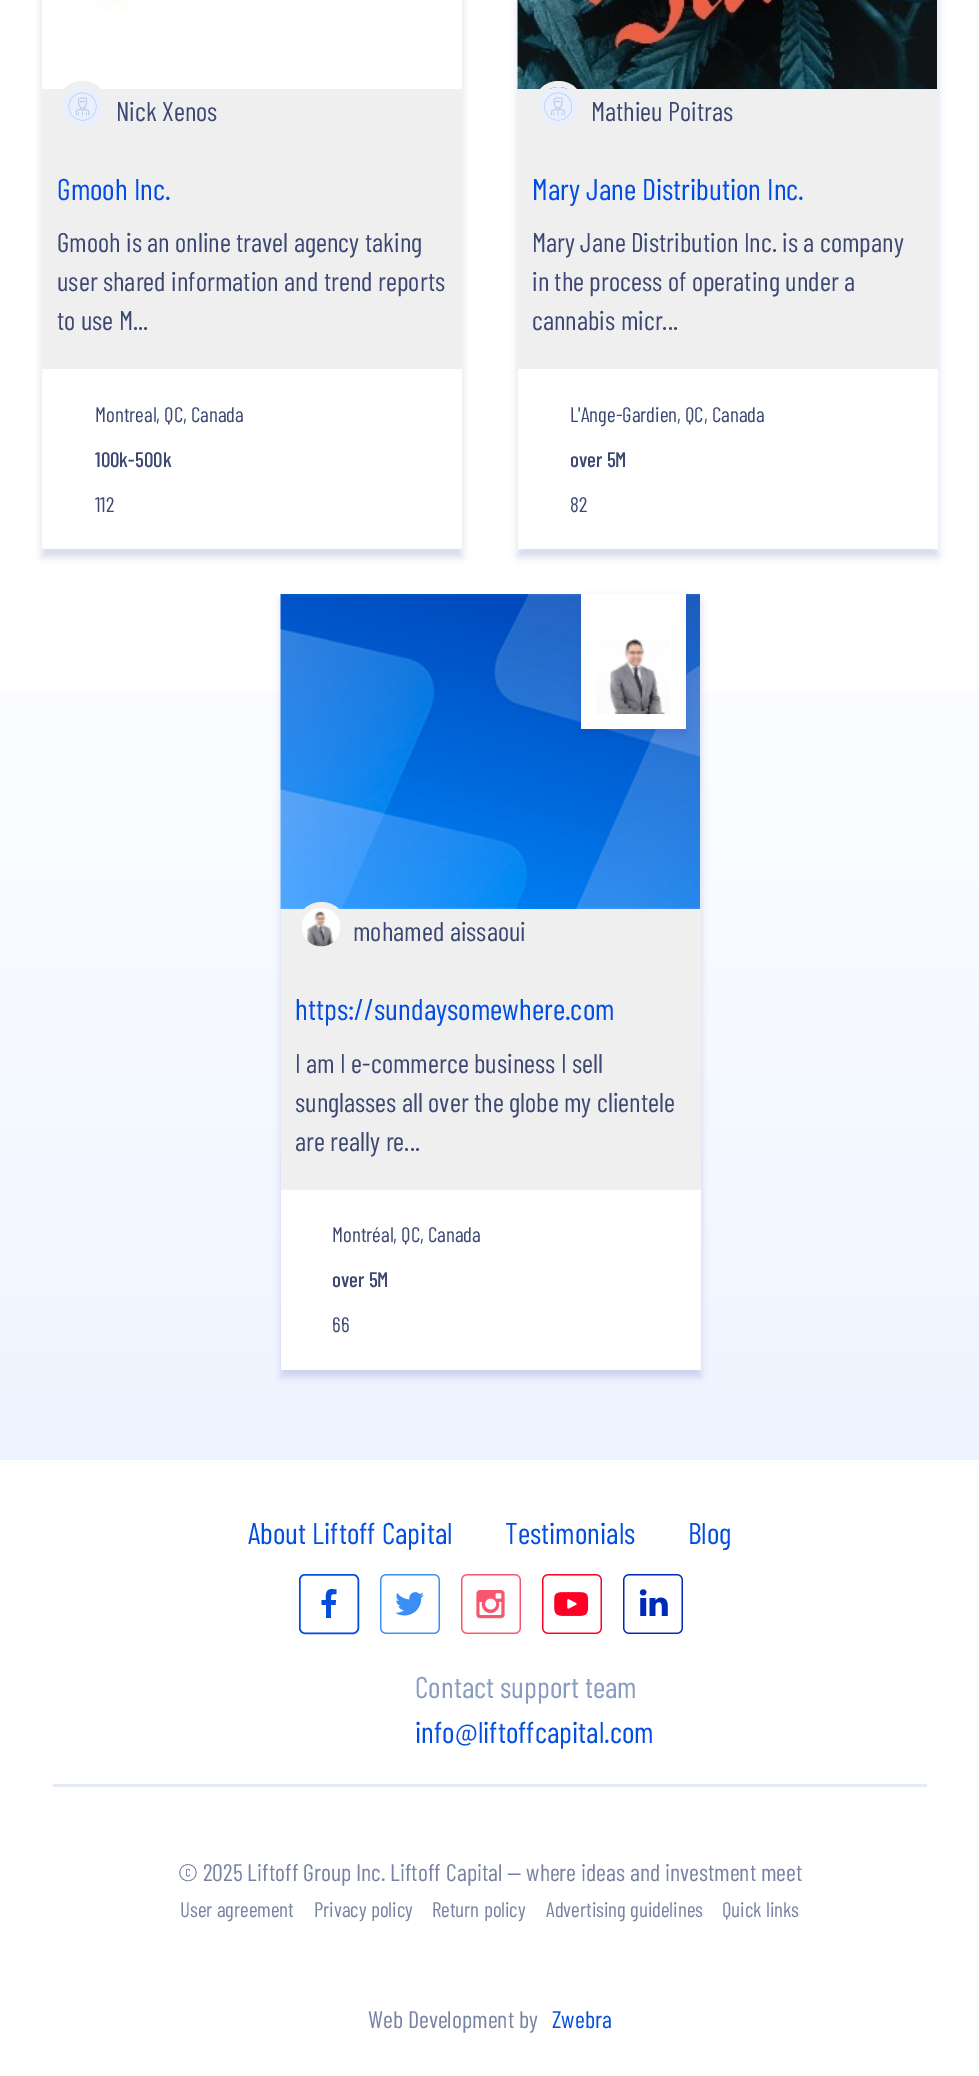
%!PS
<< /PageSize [979 2076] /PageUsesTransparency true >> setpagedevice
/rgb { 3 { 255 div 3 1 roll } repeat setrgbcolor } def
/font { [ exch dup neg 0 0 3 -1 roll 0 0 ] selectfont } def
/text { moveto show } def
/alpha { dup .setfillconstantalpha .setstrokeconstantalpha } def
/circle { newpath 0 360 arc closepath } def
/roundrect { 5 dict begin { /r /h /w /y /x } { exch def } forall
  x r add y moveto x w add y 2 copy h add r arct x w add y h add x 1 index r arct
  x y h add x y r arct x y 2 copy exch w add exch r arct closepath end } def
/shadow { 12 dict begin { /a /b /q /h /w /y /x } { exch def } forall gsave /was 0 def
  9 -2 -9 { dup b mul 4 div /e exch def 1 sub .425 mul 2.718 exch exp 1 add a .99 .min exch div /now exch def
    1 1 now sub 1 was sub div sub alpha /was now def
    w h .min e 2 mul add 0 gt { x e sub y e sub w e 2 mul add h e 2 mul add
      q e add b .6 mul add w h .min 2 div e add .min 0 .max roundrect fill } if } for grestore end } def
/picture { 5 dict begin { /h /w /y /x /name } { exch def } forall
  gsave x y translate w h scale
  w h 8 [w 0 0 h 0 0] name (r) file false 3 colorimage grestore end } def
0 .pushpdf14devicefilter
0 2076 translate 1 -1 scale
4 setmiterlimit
255 255 255 rgb
0 0 979 2076 rectfill
gsave 0 692 moveto 979 0 rlineto 0 768 rlineto -979 0 rlineto closepath clip newpath
<< /ShadingType 2 /ColorSpace /DeviceRGB /Coords [490 559 490 1460] /Extend [true true] /Function << /FunctionType 2 /Domain [0 1] /C0 [1 1 1] /C1 [0.933 0.957 1] /N 1 >> >> shfill grestore
gsave
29 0 moveto 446 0 rlineto 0 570 rlineto -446 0 rlineto closepath 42 -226 moveto 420 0 rlineto 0 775 rlineto -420 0 rlineto closepath eoclip newpath
16 47 154 rgb
42 -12 420 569 0 4 0.17 shadow
grestore
(img_01.rgb) 95 0 38 13 picture
239 239 239 rgb
42 89 420 280 rectfill
6 setlinewidth
82.5 106.5 22.5 circle stroke
(img_02.rgb) 63 87 39 39 picture
16 47 154 rgb
518 -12 420 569 0 4 0.17 shadow
(img_03.rgb) 517 0 420 89 picture
239 239 239 rgb
518 89 420 280 rectfill
558.5 106.5 22.5 circle stroke
(img_04.rgb) 539 87 39 39 picture
255 255 255 rgb
518 369 420 180 rectfill
16 47 154 rgb
281 602 420 775 0 4 0.17 shadow
(img_06.rgb) 280 594 420 315 picture
581 599 105 135 0 4.5 0.17 shadow
255 255 255 rgb
581 594 105 135 rectfill
(img_05.rgb) 595 639 75 75 picture
239 239 239 rgb
281 909 420 281 rectfill
321.5 927.5 22.5 circle stroke
(img_07.rgb) 302 908 38 39 picture
255 255 255 rgb
281 1190 420 180 rectfill
3 77 223 rgb
1.5 setlinewidth
299.75 1574.75 58.5 58.5 5.25 roundrect stroke
331 1618 moveto 0 -13 rlineto 4.5 0 rlineto 0.5 -5 rlineto -5 0 rlineto 0 -5.5 -0.5 -6 5.5 -6 rcurveto 0 -4.5 rlineto -5.5 -0.5 rlineto -6 1 -5 6.5 -5 11 rcurveto -4.5 0 rlineto 0 5 rlineto 4.5 0 rlineto 0 13 rlineto closepath fill
(img_08.rgb) 380 1574 60 60 picture
(img_09.rgb) 461 1574 60 60 picture
(img_10.rgb) 542 1574 60 60 picture
(img_11.rgb) 623 1574 60 60 picture
227 234 246 rgb
53 1784 874 3 rectfill
/BarlowCondensed-Regular 27 font
60 72 113 rgb
(Nick Xenos) 116 121 text
/BarlowCondensed-Regular 30 font
3 77 223 rgb
(Gmooh Inc.) 57 200 text
/BarlowCondensed-Regular 27 font
60 72 113 rgb
(Gmooh is an online travel agency taking) 57 252 text
(user shared information and trend reports) 57 291 text
(to use M...) 57 330 text
/BarlowCondensed-Regular 21 font
(Montreal, QC, Canada) 95 422 text
/BarlowCondensed-Medium 21 font
(100k-500k) 95 467 text
/BarlowCondensed-Regular 21 font
(112) 95 512 text
/BarlowCondensed-Regular 27 font
(Mathieu Poitras) 591 121 text
/BarlowCondensed-Regular 30 font
3 77 223 rgb
(Mary Jane Distribution Inc.) 532 200 text
/BarlowCondensed-Regular 27 font
60 72 113 rgb
(Mary Jane Distribution Inc. is a company) 532 252 text
(in the process of operating under a) 532 291 text
(cannabis micr...) 532 330 text
/BarlowCondensed-Regular 21 font
(L'Ange-Gardien, QC, Canada) 570 422 text
/BarlowCondensed-Medium 21 font
(over 5M) 570 467 text
/BarlowCondensed-Regular 21 font
(82) 570 512 text
/BarlowCondensed-Regular 27 font
(mohamed aissaoui) 353 941 text
/BarlowCondensed-Regular 30 font
3 77 223 rgb
(https://sundaysomewhere.com) 295 1020 text
/BarlowCondensed-Regular 27 font
60 72 113 rgb
(I am I e-commerce business I sell) 295 1073 text
(sunglasses all over the globe my clientele) 295 1112 text
(are really re...) 295 1151 text
/BarlowCondensed-Regular 21 font
(Montréal, QC, Canada) 332 1242 text
/BarlowCondensed-Medium 21 font
(over 5M) 332 1287 text
/BarlowCondensed-Regular 21 font
(66) 332 1332 text
/BarlowCondensed-Regular 30 font
3 77 223 rgb
(About Liftoff Capital) 248 1544 text
(Testimonials) 505 1544 text
(Blog) 688 1544 text
136 155 192 rgb
(Contact support team) 415 1698 text
3 77 223 rgb
(info@liftoffcapital.com) 415 1743 text
/BarlowCondensed-Regular 24 font
120 130 163 rgb
(© 2025 Liftoff Group Inc. Liftoff Capital — where ideas and investment meet) 178 1881 text
/BarlowCondensed-Regular 21 font
(User agreement) 180 1917 text
(Privacy policy) 314 1917 text
(Return policy) 432 1917 text
(Advertising guidelines) 546 1917 text
(Quick links) 722 1917 text
/BarlowCondensed-Regular 24 font
(Web Development by) 368 2028 text
3 77 223 rgb
(Zwebra) 552 2028 text
.poppdf14devicefilter showpage
